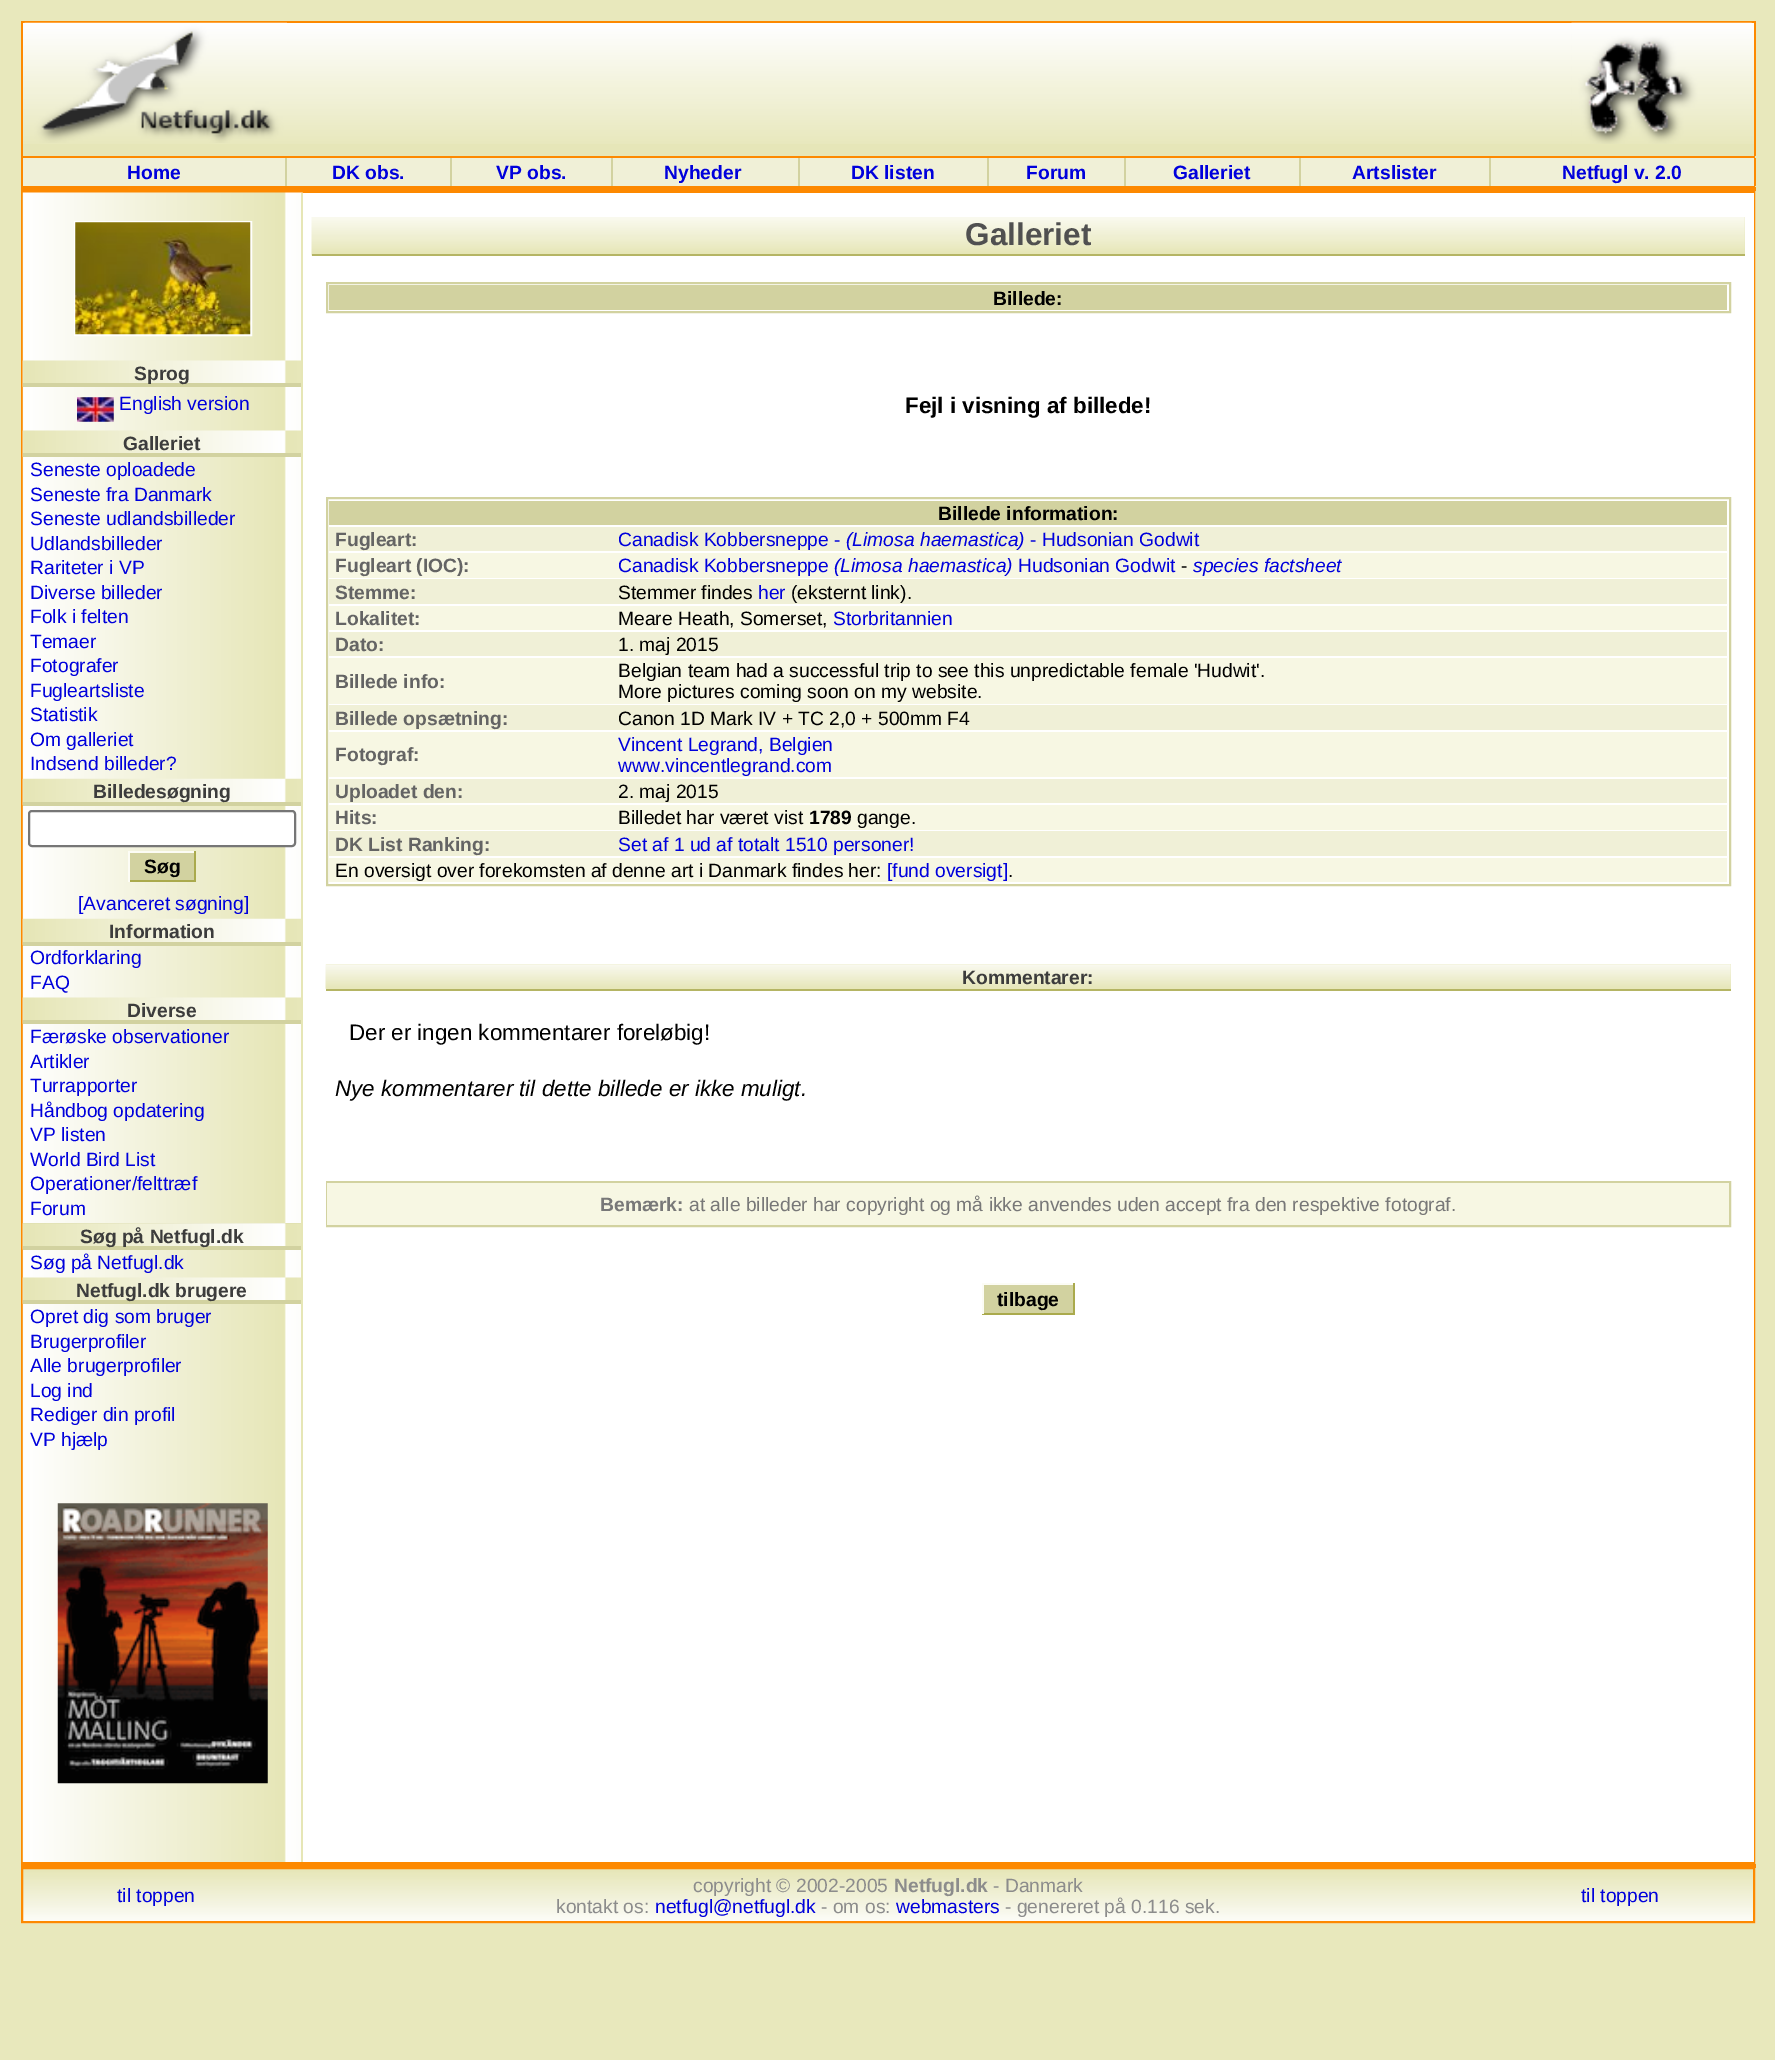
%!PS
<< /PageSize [1775 2060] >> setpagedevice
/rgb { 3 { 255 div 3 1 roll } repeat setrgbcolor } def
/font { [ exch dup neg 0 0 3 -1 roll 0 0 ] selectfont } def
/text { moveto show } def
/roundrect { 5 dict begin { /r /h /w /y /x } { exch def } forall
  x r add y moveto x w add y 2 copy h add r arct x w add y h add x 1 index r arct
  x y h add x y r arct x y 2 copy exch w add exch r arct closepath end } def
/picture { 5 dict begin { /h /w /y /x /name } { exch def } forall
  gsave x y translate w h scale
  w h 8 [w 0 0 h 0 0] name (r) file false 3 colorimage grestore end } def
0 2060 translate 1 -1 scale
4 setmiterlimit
232 232 188 rgb
0 0 1775 2060 rectfill
230 230 184 rgb
23 144 1731 12 rectfill
(img_01.rgb) 23 23 1731 121 picture
253 137 0 rgb
21 21 1734 2 rectfill
1754 21 2 135 rectfill
21 21 2 135 rectfill
(img_02.rgb) 24 22 263 121 picture
(img_03.rgb) 1571 22 181 122 picture
240 240 215 rgb
23 158 1731 28 rectfill
253 137 0 rgb
21 156 1734 2 rectfill
21 186 1734 1 rectfill
21 156 2 35 rectfill
210 210 160 rgb
285 158 2 28 rectfill
450 158 2 28 rectfill
611 158 2 28 rectfill
798 158 2 28 rectfill
987 158 2 28 rectfill
1124 158 2 28 rectfill
1299 158 2 28 rectfill
1489 158 2 28 rectfill
253 137 0 rgb
1754 158 2 28 rectfill
23 187 1733 4 rectfill
2 setlinewidth
22 192 1732 1671 rectstroke
(img_04.rgb) 22 192 281 1670 picture
230 230 182 rgb
301 193 2 1669 rectfill
255 255 255 rgb
75 222 176 113 rectstroke
(img_05.rgb) 75 222 176 113 picture
(img_06.rgb) 22 360 279 27 picture
210 210 160 rgb
23 383 278 4 rectfill
(img_07.rgb) 77 397 37 25 picture
(img_06.rgb) 22 430 279 27 picture
23 453 278 4 rectfill
(img_08.rgb) 22 778 279 27 picture
23 802 278 4 rectfill
255 255 255 rgb
29 811 266 35 3 roundrect gsave fill grestore
118 118 118 rgb
stroke
210 210 160 rgb
130 853 64 27 rectfill
252 252 245 rgb
128 851 68 2 rectfill
170 170 77 rgb
194 851 2 31 rectfill
128 880 68 2 rectfill
252 252 245 rgb
128 851 2 31 rectfill
(img_08.rgb) 22 918 279 27 picture
210 210 160 rgb
23 942 278 4 rectfill
(img_09.rgb) 22 997 279 27 picture
23 1020 278 4 rectfill
(img_10.rgb) 22 1223 279 27 picture
23 1246 278 4 rectfill
(img_09.rgb) 22 1277 279 27 picture
23 1300 278 4 rectfill
(img_11.rgb) 57 1503 211 281 picture
255 255 255 rgb
303 193 1451 1669 rectfill
(img_12.rgb) 311 217 1434 39 picture
181 181 100 rgb
312 254 1433 2 rectfill
210 210 160 rgb
327 283 1403 29 rectstroke
329 285 1398 25 rectfill
327 498 1403 387 rectstroke
329 501 1398 24 rectfill
240 240 215 rgb
329 527 1398 24 rectfill
247 247 227 rgb
329 553 1398 25 rectfill
240 240 215 rgb
329 579 1398 25 rectfill
247 247 227 rgb
329 606 1398 24 rectfill
240 240 215 rgb
329 632 1398 24 rectfill
247 247 227 rgb
329 658 1398 46 rectfill
240 240 215 rgb
329 705 1398 25 rectfill
247 247 227 rgb
329 732 1398 45 rectfill
240 240 215 rgb
329 779 1398 24 rectfill
247 247 227 rgb
329 805 1398 25 rectfill
240 240 215 rgb
329 831 1398 25 rectfill
247 247 227 rgb
329 858 1398 24 rectfill
181 181 100 rgb
326 989 1405 2 rectfill
230 230 182 rgb
326 964 1405 25 rectfill
(img_13.rgb) 325 964 1406 25 picture
210 210 160 rgb
327 1182 1403 44 rectstroke
247 247 227 rgb
327 1183 1402 42 rectfill
210 210 160 rgb
984 1285 89 28 rectfill
252 252 245 rgb
982 1283 93 2 rectfill
170 170 77 rgb
1073 1283 2 31 rectfill
982 1313 93 2 rectfill
252 252 245 rgb
982 1283 2 31 rectfill
253 137 0 rgb
1754 1864 2 4 rectfill
21 1864 2 4 rectfill
23 1864 1731 3 rectfill
(img_14.rgb) 21 1869 1735 55 picture
22 1868 1732 54 rectstroke
/LiberationSans-Bold 19.25 font
0 0 220 rgb
(Home) 127 179 text
(DK obs.) 332 179 text
(VP obs.) 496 179 text
(Nyheder) 664 179 text
(DK listen) 851 179 text
(Forum) 1026 179 text
(Galleriet) 1173 179 text
(Artslister) 1352 179 text
(Netfugl v. 2.0) 1562 179 text
60 60 60 rgb
(Sprog) 134 380 text
/LiberationSans-Regular 19.25 font
0 0 220 rgb
(English version) 119 410 text
/LiberationSans-Bold 19.25 font
60 60 60 rgb
(Galleriet) 123 450 text
/LiberationSans-Regular 19.25 font
0 0 220 rgb
(Seneste oploadede) 30 476 text
(Seneste fra Danmark) 30 501 text
(Seneste udlandsbilleder) 30 525 text
(Udlandsbilleder) 30 550 text
(Rariteter i VP) 30 574 text
(Diverse billeder) 30 599 text
(Folk i felten) 30 623 text
(Temaer) 30 648 text
(Fotografer) 30 672 text
(Fugleartsliste) 30 697 text
(Statistik) 30 721 text
(Om galleriet) 30 746 text
(Indsend billeder?) 30 770 text
/LiberationSans-Bold 19.25 font
60 60 60 rgb
(Billedesøgning) 93 798 text
0 0 0 rgb
(Søg) 144 873 text
/LiberationSans-Regular 19.25 font
0 0 220 rgb
([Avanceret søgning]) 78 910 text
/LiberationSans-Bold 19.25 font
60 60 60 rgb
(Information) 109 938 text
/LiberationSans-Regular 19.25 font
0 0 220 rgb
(Ordforklaring) 30 964 text
(FAQ) 30 989 text
/LiberationSans-Bold 19.25 font
60 60 60 rgb
(Diverse) 127 1017 text
/LiberationSans-Regular 19.25 font
0 0 220 rgb
(Færøske observationer) 30 1043 text
(Artikler) 30 1068 text
(Turrapporter) 30 1092 text
(Håndbog opdatering) 30 1117 text
(VP listen) 30 1141 text
(World Bird List) 30 1166 text
(Operationer/felttræf) 30 1190 text
(Forum) 30 1215 text
/LiberationSans-Bold 19.25 font
60 60 60 rgb
(Søg på Netfugl.dk) 80 1243 text
/LiberationSans-Regular 19.25 font
0 0 220 rgb
(Søg på Netfugl.dk) 30 1269 text
/LiberationSans-Bold 19.25 font
60 60 60 rgb
(Netfugl.dk brugere) 76 1297 text
/LiberationSans-Regular 19.25 font
0 0 220 rgb
(Opret dig som bruger) 30 1323 text
(Brugerprofiler) 30 1348 text
(Alle brugerprofiler) 30 1372 text
(Log ind) 30 1397 text
(Rediger din profil) 30 1421 text
(VP hjælp) 30 1446 text
/LiberationSans-Bold 31.5 font
80 80 80 rgb
(Galleriet) 965 245 text
/LiberationSans-Bold 19.25 font
0 0 0 rgb
(Billede:) 993 305 text
/LiberationSans-Bold 22.4 font
(Fejl i visning af billede!) 905 413 text
/LiberationSans-Bold 19.25 font
(Billede information:) 938 520 text
100 100 100 rgb
(Fugleart:) 335 546 text
/LiberationSans-Regular 19.25 font
0 0 220 rgb
(Canadisk Kobbersneppe -) 618 546 text
/LiberationSans-Italic 19.25 font
(\(Limosa haemastica\)) 846 546 text
/LiberationSans-Regular 19.25 font
(- Hudsonian Godwit) 1030 546 text
/LiberationSans-Bold 19.25 font
100 100 100 rgb
(Fugleart \(IOC\):) 335 572 text
/LiberationSans-Regular 19.25 font
0 0 220 rgb
(Canadisk Kobbersneppe) 618 572 text
/LiberationSans-Italic 19.25 font
(\(Limosa haemastica\)) 834 572 text
/LiberationSans-Regular 19.25 font
(Hudsonian Godwit) 1018 572 text
0 0 0 rgb
(-) 1181 572 text
/LiberationSans-Italic 19.25 font
0 0 220 rgb
(species factsheet) 1193 572 text
/LiberationSans-Bold 19.25 font
100 100 100 rgb
(Stemme:) 335 599 text
/LiberationSans-Regular 19.25 font
0 0 0 rgb
(Stemmer findes) 618 599 text
0 0 220 rgb
(her) 758 599 text
0 0 0 rgb
(\(eksternt link\).) 791 599 text
/LiberationSans-Bold 19.25 font
100 100 100 rgb
(Lokalitet:) 335 625 text
/LiberationSans-Regular 19.25 font
0 0 0 rgb
(Meare Heath, Somerset,) 618 625 text
0 0 220 rgb
(Storbritannien) 833 625 text
/LiberationSans-Bold 19.25 font
100 100 100 rgb
(Dato:) 335 651 text
/LiberationSans-Regular 19.25 font
0 0 0 rgb
(1. maj 2015) 618 651 text
/LiberationSans-Bold 19.25 font
100 100 100 rgb
(Billede info:) 335 688 text
/LiberationSans-Regular 19.25 font
0 0 0 rgb
(Belgian team had a successful trip to see this unpredictable female 'Hudwit'.) 618 677 text
(More pictures coming soon on my website.) 618 698 text
/LiberationSans-Bold 19.25 font
100 100 100 rgb
(Billede opsætning:) 335 725 text
/LiberationSans-Regular 19.25 font
0 0 0 rgb
(Canon 1D Mark IV + TC 2,0 + 500mm F4) 618 725 text
/LiberationSans-Bold 19.25 font
100 100 100 rgb
(Fotograf:) 335 761 text
/LiberationSans-Regular 19.25 font
0 0 220 rgb
(Vincent Legrand, Belgien) 618 751 text
(www.vincentlegrand.com) 618 772 text
/LiberationSans-Bold 19.25 font
100 100 100 rgb
(Uploadet den:) 335 798 text
/LiberationSans-Regular 19.25 font
0 0 0 rgb
(2. maj 2015) 618 798 text
/LiberationSans-Bold 19.25 font
100 100 100 rgb
(Hits:) 335 824 text
/LiberationSans-Regular 19.25 font
0 0 0 rgb
(Billedet har været vist) 618 824 text
/LiberationSans-Bold 19.25 font
(1789) 809 824 text
/LiberationSans-Regular 19.25 font
(gange.) 857 824 text
/LiberationSans-Bold 19.25 font
100 100 100 rgb
(DK List Ranking:) 335 851 text
/LiberationSans-Regular 19.25 font
0 0 220 rgb
(Set af 1 ud af totalt 1510 personer!) 618 851 text
0 0 0 rgb
(En oversigt over forekomsten af denne art i Danmark findes her:) 335 877 text
0 0 220 rgb
([fund oversigt]) 887 877 text
0 0 0 rgb
(.) 1008 877 text
/LiberationSans-Bold 19.25 font
60 60 60 rgb
(Kommentarer:) 962 984 text
/LiberationSans-Regular 22.4 font
0 0 0 rgb
(Der er ingen kommentarer foreløbig!) 349 1040 text
/LiberationSans-Italic 22.4 font
(Nye kommentarer til dette billede er ikke muligt.) 335 1096 text
/LiberationSans-Bold 19.25 font
120 120 120 rgb
(Bemærk:) 600 1211 text
/LiberationSans-Regular 19.25 font
(at alle billeder har copyright og må ikke anvendes uden accept fra den respektive fotograf.) 689 1211 text
/LiberationSans-Bold 19.25 font
0 0 0 rgb
(tilbage) 997 1306 text
/LiberationSans-Regular 19.25 font
0 0 220 rgb
(til toppen) 117 1902 text
140 140 140 rgb
(copyright © 2002-2005) 693 1892 text
/LiberationSans-Bold 19.25 font
(Netfugl.dk) 894 1892 text
/LiberationSans-Regular 19.25 font
(- Danmark) 993 1892 text
(kontakt os:) 556 1913 text
0 0 220 rgb
(netfugl@netfugl.dk) 655 1913 text
140 140 140 rgb
(- om os:) 821 1913 text
0 0 220 rgb
(webmasters) 896 1913 text
140 140 140 rgb
(- genereret på 0.116 sek.) 1005 1913 text
0 0 220 rgb
(til toppen) 1581 1902 text
showpage
